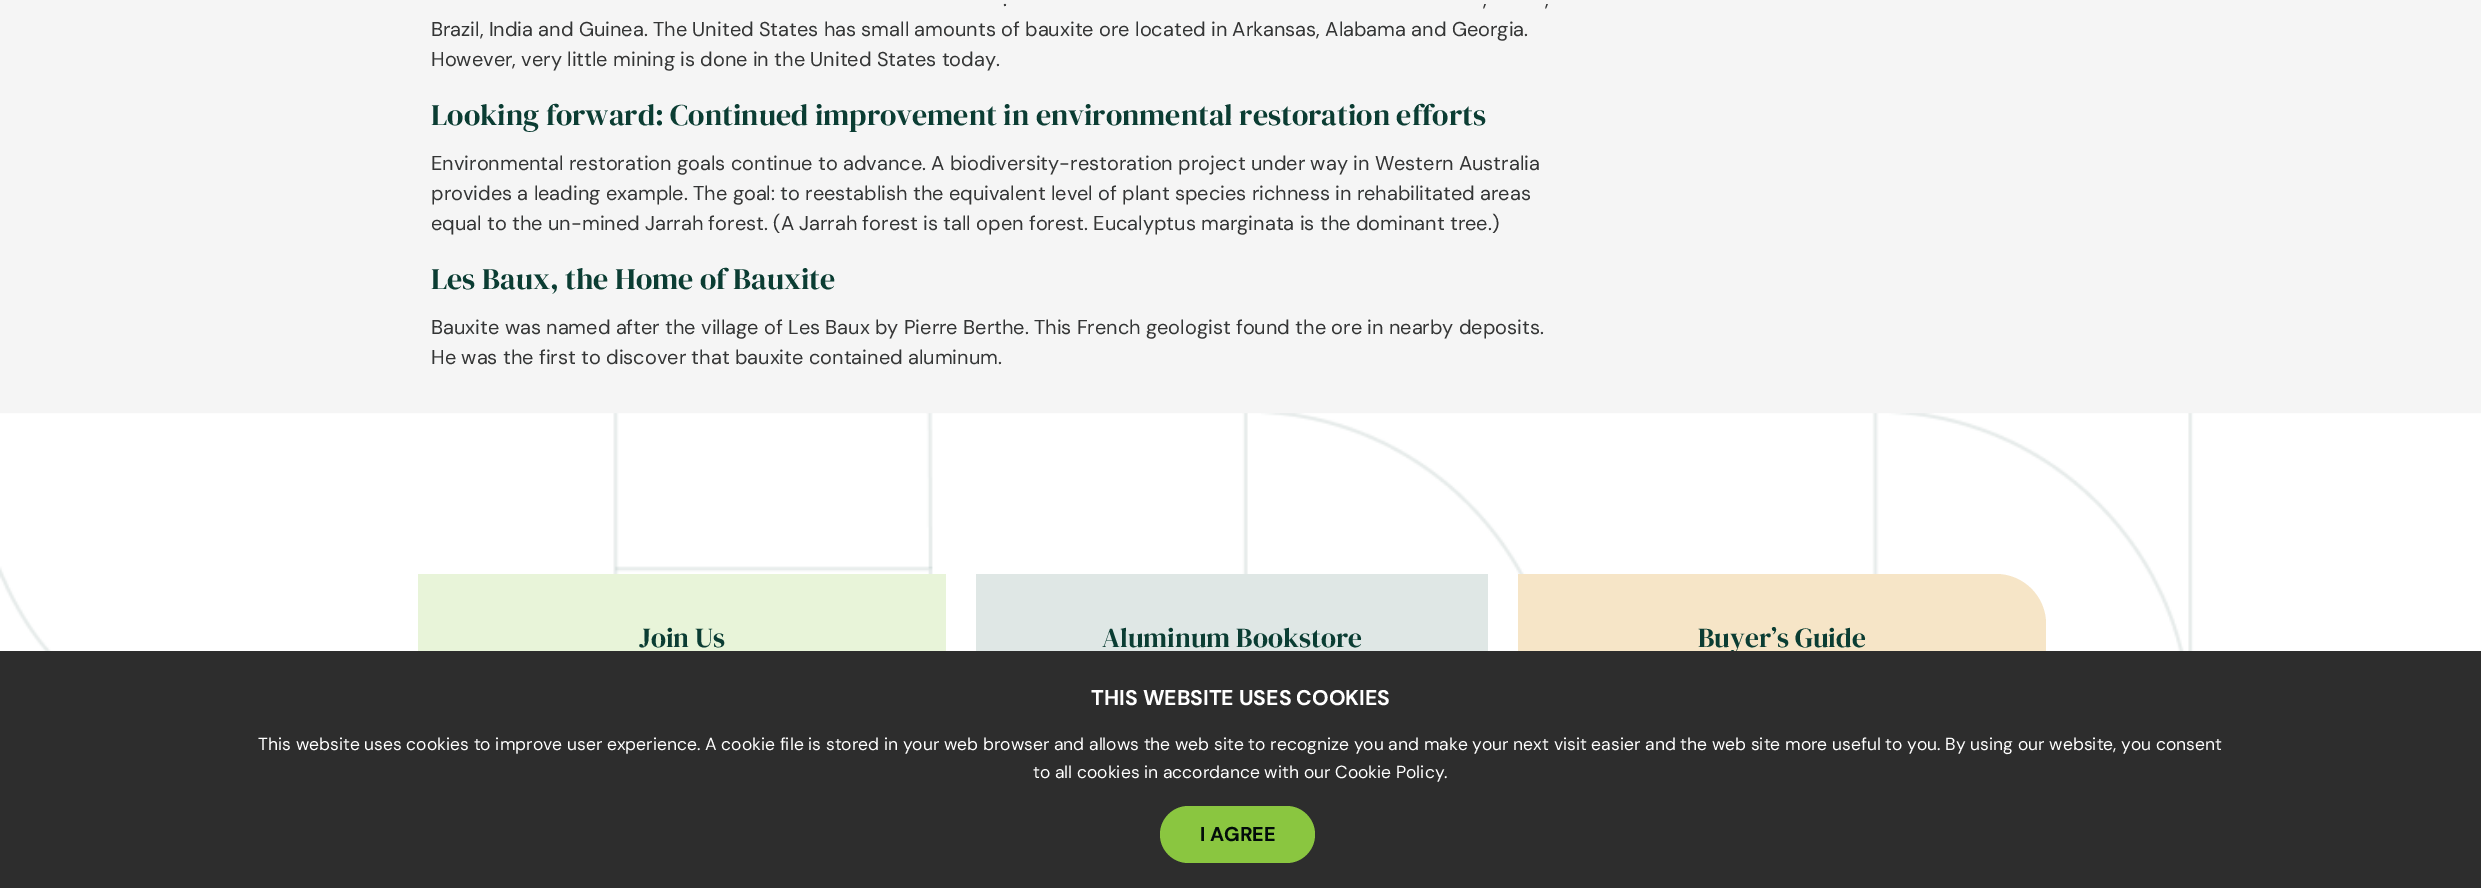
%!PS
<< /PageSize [2481 888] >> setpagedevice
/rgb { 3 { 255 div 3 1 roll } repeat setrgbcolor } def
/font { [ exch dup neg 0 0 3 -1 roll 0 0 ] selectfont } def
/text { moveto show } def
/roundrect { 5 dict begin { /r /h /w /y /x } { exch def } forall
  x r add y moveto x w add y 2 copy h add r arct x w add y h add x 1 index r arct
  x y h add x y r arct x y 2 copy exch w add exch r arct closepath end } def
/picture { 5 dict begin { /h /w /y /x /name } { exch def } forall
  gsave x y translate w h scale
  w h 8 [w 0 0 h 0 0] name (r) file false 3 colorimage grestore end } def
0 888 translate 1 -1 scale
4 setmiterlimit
245 245 245 rgb
0 0 2481 888 rectfill
(img_01.rgb) 0 413 2481 238 picture
232 244 217 rgb
418 574 528 77 rectfill
223 231 229 rgb
976 574 512 77 rectfill
246 229 199 rgb
1518 574 moveto 478 0 rlineto 27.5 0 50 22.5 50 50 rcurveto 0 256 rlineto -528 0 rlineto closepath fill
/DMSans-Regular 20 font
52 53 53 rgb
(.) 1003 6 text
(,) 1483 6 text
(,) 1545 6 text
(Brazil, India and Guinea. The United States has small amounts of bauxite ore located in Arkansas, Alabama and Georgia.) 431 36 text
(However, very little mining is done in the United States today.) 431 66 text
/DMSerifDisplay-Regular 30 font
11 61 51 rgb
(Looking forward: Continued improvement in environmental restoration efforts) 431 125 text
/DMSans-Regular 20 font
52 53 53 rgb
(Environmental restoration goals continue to advance. A biodiversity-restoration project under way in Western Australia) 431 170 text
(provides a leading example. The goal: to reestablish the equivalent level of plant species richness in rehabilitated areas) 431 200 text
(equal to the un-mined Jarrah forest. \(A Jarrah forest is tall open forest. Eucalyptus marginata is the dominant tree.\)) 431 230 text
/DMSerifDisplay-Regular 30 font
11 61 51 rgb
(Les Baux, the Home of Bauxite) 431 289 text
/DMSans-Regular 20 font
52 53 53 rgb
(Bauxite was named after the village of Les Baux by Pierre Berthe. This French geologist found the ore in nearby deposits.) 431 334 text
(He was the first to discover that bauxite contained aluminum.) 431 364 text
/DMSerifDisplay-Regular 27.5 font
11 61 51 rgb
(Join Us) 639 647 text
(Aluminum Bookstore) 1102 647 text
(Buyer’s Guide) 1698 647 text
45 45 45 rgb
0 651 2481 237 rectfill
/DMSans-Bold 21.25 font
255 255 255 rgb
(THIS WEBSITE USES COOKIES) 1091 705 text
/DMSans-Regular 17.5 font
(This website uses cookies to improve user experience. A cookie file is stored in your web browser and allows the web site to recognize you and make your next visit easier and the web site more useful to you. By using our website, you consent) 258 750 text
(to all cookies in accordance with our Cookie Policy.) 1033 778 text
138 198 64 rgb
1160 806 155 57 28.5 roundrect fill
/DMSans-Bold 20 font
2 12 10 rgb
(I AGREE) 1200 841 text
showpage
